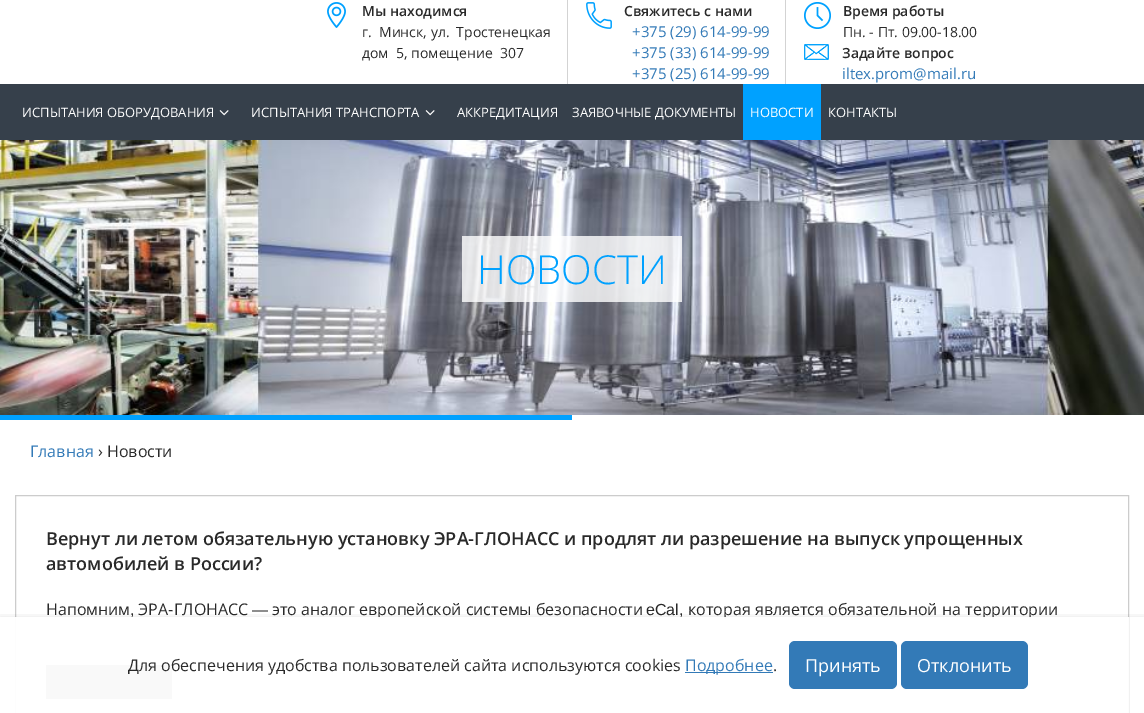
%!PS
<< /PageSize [1144 713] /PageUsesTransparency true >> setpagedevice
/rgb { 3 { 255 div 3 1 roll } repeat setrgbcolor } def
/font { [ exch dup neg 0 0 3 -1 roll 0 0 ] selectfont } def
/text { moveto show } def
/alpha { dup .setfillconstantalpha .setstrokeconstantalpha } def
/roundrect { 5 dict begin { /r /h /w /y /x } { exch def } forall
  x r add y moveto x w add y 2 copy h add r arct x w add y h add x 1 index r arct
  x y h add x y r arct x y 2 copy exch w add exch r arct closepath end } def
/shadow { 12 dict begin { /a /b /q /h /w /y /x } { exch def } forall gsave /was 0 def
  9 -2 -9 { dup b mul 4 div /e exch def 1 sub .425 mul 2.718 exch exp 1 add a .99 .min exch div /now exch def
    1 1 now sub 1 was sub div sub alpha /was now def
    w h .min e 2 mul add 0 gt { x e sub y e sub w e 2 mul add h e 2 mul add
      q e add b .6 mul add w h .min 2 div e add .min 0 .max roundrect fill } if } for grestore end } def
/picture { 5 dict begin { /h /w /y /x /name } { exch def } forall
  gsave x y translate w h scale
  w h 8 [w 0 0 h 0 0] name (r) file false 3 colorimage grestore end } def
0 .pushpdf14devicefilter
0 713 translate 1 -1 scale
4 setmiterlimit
255 255 255 rgb
0 0 1144 713 rectfill
211 211 211 rgb
567 0 1 84 rectfill
(img_01.rgb) 327 2 19 26 picture
785 0 1 84 rectfill
(img_02.rgb) 586 2 26 27 picture
(img_03.rgb) 804 2 27 27 picture
(img_04.rgb) 804 44 25 16 picture
54 64 75 rgb
0 84 1144 56 rectfill
(img_05.rgb) 219 110 10 6 picture
(img_05.rgb) 425 110 10 6 picture
0 161 255 rgb
743 84 78 56 rectfill
(img_06.rgb) 0 140 1144 275 picture
0.8 alpha
255 255 255 rgb
462 236 220 66 rectfill
1 alpha
0 161 255 rgb
0 415 572 5 rectfill
204 204 204 rgb
15.5 495.5 1113 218 rectstroke
54 64 75 rgb
46 665 126 34 rectfill
gsave
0 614 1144 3 rectclip
0 0 0 rgb
0 617 1144 96 0 4 0.1 shadow
grestore
/OpenSans-SemiBold 14 font
41 41 41 rgb
(Мы находимся) 362 16 text
/OpenSans-Regular 14 font
(г.  Минск, ул.  Тростенецкая) 362 37 text
(дом  5, помещение  307) 362 58 text
/OpenSans-SemiBold 14 font
(Свяжитесь с нами) 624 16 text
/OpenSans-Regular 15 font
51 122 183 rgb
(+375 \(29\) 614-99-99) 632 37 text
(+375 \(33\) 614-99-99) 632 58 text
(+375 \(25\) 614-99-99) 632 79 text
/OpenSans-SemiBold 14 font
41 41 41 rgb
(Время работы) 843 16 text
/OpenSans-Regular 14 font
(Пн. - Пт. 09.00-18.00) 843 37 text
/OpenSans-SemiBold 14 font
(Задайте вопрос) 842 58 text
/OpenSans-Regular 15 font
51 122 183 rgb
(iltex.prom@mail.ru) 842 79 text
/OpenSans-Regular 13 font
255 255 255 rgb
(ИСПЫТАНИЯ ОБОРУДОВАНИЯ) 22 117 text
(ИСПЫТАНИЯ ТРАНСПОРТА) 251 117 text
(АККРЕДИТАЦИЯ) 457 117 text
(ЗАЯВОЧНЫЕ ДОКУМЕНТЫ) 572 117 text
(НОВОСТИ) 750 117 text
(КОНТАКТЫ) 828 117 text
/OpenSans-Light 40 font
0 161 255 rgb
(НОВОСТИ) 477 284 text
/OpenSans-Regular 16 font
51 122 183 rgb
(Главная) 30 457 text
41 41 41 rgb
(› Новости) 98 457 text
/OpenSans-SemiBold 18 font
(Вернут ли летом обязательную установку ЭРА-ГЛОНАСС и продлят ли разрешение на выпуск упрощенных) 46 545 text
(автомобилей в России?) 46 570 text
/OpenSans-Regular 16 font
(Напомним) 46 615 text
(ЭРА) 138 615 text
/LiberationSans-Regular 16 font
(-) 168 615 text
/OpenSans-Regular 16 font
(ГЛОНАСС) 174 615 text
/LiberationSans-Regular 16 font
(―) 252 615 text
/OpenSans-Regular 16 font
(это аналог европейской системы безопасности) 272 615 text
/LiberationSans-Regular 16 font
(eCal,) 646 615 text
/OpenSans-Regular 16 font
(которая является обязательной на территории) 688 615 text
/LiberationSans-Regular 16 font
(,) 130 615 text
0.97 alpha
255 255 255 rgb
15 617 1114 96 rectfill
/OpenSans-Regular 16 font
1 alpha
41 41 41 rgb
(Для обеспечения удобства пользователей сайта используются cookies) 128 671 text
51 122 183 rgb
685 672 88 1 rectfill
(Подробнее) 685 671 text
41 41 41 rgb
(.) 773 671 text
51 122 183 rgb
789 641 108 48 6 roundrect fill
/OpenSans-Regular 18 font
255 255 255 rgb
(Принять) 805 672 text
51 122 183 rgb
901 641 127 48 6 roundrect fill
255 255 255 rgb
(Отклонить) 917 672 text
.poppdf14devicefilter showpage
